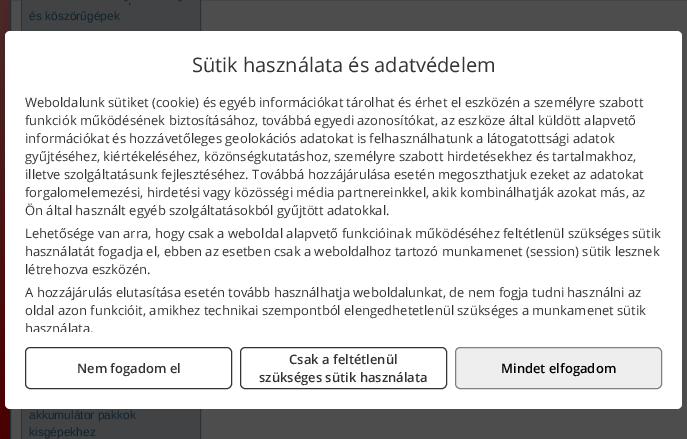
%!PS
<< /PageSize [687 439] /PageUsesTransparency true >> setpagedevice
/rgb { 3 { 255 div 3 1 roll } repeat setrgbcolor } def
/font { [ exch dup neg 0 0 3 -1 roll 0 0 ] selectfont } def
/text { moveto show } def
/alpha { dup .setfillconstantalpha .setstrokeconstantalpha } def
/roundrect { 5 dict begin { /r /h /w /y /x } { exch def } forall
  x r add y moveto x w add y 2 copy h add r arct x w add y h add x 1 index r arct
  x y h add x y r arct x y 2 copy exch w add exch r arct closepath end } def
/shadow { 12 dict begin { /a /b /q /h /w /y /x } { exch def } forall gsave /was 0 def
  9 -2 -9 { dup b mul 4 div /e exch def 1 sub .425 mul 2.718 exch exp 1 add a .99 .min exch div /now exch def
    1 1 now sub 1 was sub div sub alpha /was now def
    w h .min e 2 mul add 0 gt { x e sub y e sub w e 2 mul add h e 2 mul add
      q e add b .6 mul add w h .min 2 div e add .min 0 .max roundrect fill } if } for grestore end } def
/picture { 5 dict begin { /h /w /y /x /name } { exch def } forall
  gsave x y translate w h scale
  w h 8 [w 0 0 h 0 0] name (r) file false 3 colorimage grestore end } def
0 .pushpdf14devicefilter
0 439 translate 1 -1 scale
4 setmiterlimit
255 255 255 rgb
0 0 687 439 rectfill
(img_01.rgb) 0 0 10 439 picture
0 0 0 rgb
10 -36 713 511 6 10 0.1 shadow
77 77 77 rgb
10.5 -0.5 moveto 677 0 rlineto 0 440 rlineto -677 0 rlineto closepath gsave fill grestore
38 46 54 rgb
stroke
46 51 58 rgb
21.5 -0.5 179 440 rectstroke
65 67 68 rgb
22 0 178 439 rectfill
15 15 15 rgb
637 359 40 40 3 5 0.4 shadow
255 255 255 rgb
5 31 677 378 5 roundrect fill
51 51 51 rgb
25.5 347.5 206 41 4.5 roundrect stroke
240.5 347.5 206 41 4.5 roundrect stroke
238 238 238 rgb
455.5 347.5 206 41 4.5 roundrect gsave fill grestore
128 128 128 rgb
stroke
/LiberationSans-Regular 12 font
16 34 44 rgb
(-,) 124 4 text
(-) 178 4 text
(és köszörűgépek) 29 20 text
(akkumulátor pakkok) 29 419 text
(kisgépekhez) 29 436 text
/OpenSans-Regular 20 font
51 51 51 rgb
(Sütik használata és adatvédelem) 192 72 text
/OpenSans-Regular 13 font
(Weboldalunk sütiket \(cookie\) és egyéb információkat tárolhat és érhet el eszközén a személyre szabott) 25 107 text
(funkciók működésének biztosításához, továbbá egyedi azonosítókat, az eszköze által küldött alapvető) 25 125 text
(információkat és hozzávetőleges geolokációs adatokat is felhasználhatunk a látogatottsági adatok) 25 143 text
(gyűjtéséhez, kiértékeléséhez, közönségkutatáshoz, személyre szabott hirdetésekhez és tartalmakhoz,) 25 161 text
(illetve szolgáltatásunk fejlesztéséhez. Továbbá hozzájárulása esetén megoszthatjuk ezeket az adatokat) 25 179 text
(forgalomelemezési, hirdetési vagy közösségi média partnereinkkel, akik kombinálhatják azokat más, az) 25 197 text
(Ön által használt egyéb szolgáltatásokból gyűjtött adatokkal.) 25 215 text
(Lehetősége van arra, hogy csak a weboldal alapvető funkcióinak működéséhez feltétlenül szükséges sütik) 25 238 text
(használatát fogadja el, ebben az esetben csak a weboldalhoz tartozó munkamenet \(session\) sütik lesznek) 25 256 text
(létrehozva eszközén.) 25 274 text
(A hozzájárulás elutasítása esetén tovább használhatja weboldalunkat, de nem fogja tudni használni az) 25 297 text
(oldal azon funkcióit, amikhez technikai szempontból elengedhetetlenül szükséges a munkamenet sütik) 25 315 text
gsave
25 93 637 239 rectclip
(használata.) 25 333 text
grestore
/OpenSans-SemiBold 13 font
(Nem fogadom el) 77 373 text
(Csak a feltétlenül) 289 364 text
(szükséges sütik használata) 259 382 text
0 0 0 rgb
(Mindet elfogadom) 501 373 text
.poppdf14devicefilter showpage
